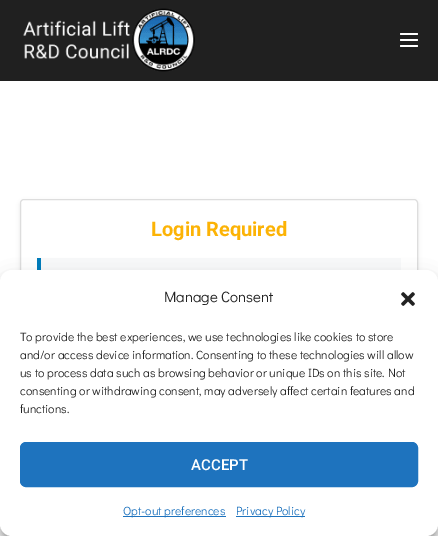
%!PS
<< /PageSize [438 536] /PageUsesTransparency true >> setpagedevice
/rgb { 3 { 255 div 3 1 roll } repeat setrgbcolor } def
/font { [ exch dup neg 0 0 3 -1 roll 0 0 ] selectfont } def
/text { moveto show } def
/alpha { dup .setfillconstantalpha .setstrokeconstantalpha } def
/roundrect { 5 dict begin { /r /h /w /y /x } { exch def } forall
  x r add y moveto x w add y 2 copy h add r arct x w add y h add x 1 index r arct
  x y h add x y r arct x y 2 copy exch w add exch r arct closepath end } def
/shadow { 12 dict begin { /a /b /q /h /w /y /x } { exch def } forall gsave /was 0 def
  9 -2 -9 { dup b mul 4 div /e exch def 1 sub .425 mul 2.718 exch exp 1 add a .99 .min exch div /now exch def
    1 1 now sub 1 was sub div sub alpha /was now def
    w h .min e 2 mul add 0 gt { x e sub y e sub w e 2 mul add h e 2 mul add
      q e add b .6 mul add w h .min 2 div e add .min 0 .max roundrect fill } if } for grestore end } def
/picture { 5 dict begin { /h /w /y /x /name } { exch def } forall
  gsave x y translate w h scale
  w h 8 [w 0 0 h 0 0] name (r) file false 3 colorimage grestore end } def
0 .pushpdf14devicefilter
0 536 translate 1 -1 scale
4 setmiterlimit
255 255 255 rgb
0 0 438 536 rectfill
32 32 32 rgb
0 0 438 81 rectfill
(img_01.rgb) 23 8 172 64 picture
255 255 255 rgb
400 33 18 2 1 roundrect fill
400 39 18 2 1 roundrect fill
400 45 18 2 1 roundrect fill
gsave
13 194 moveto 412 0 rlineto 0 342 rlineto -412 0 rlineto closepath 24 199 moveto 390 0 rlineto 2 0 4 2 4 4 rcurveto 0 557 rlineto 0 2 -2 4 -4 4 rcurveto -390 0 rlineto -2 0 -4 -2 -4 -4 rcurveto 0 -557 rlineto 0 -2 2 -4 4 -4 rcurveto closepath eoclip newpath
0 0 0 rgb
20 201 398 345 4 2 0.1 shadow
grestore
221 221 221 rgb
20.5 199.5 397 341 3.5 roundrect stroke
248 249 250 rgb
41 258 360 12 rectfill
0 124 186 rgb
37 258 4 12 rectfill
0 0 0 rgb
0 276 438 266 12 3 0.23 shadow
0 280 438 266 12 10 0.19 shadow
128 128 128 rgb
368 462 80 60 2 2.5 1 shadow
255 255 255 rgb
0 270 438 266 12 roundrect fill
(img_02.rgb) 401 292 14 14 picture
30 115 190 rgb
20.5 442.5 397 44 5.5 roundrect gsave fill grestore
stroke
123 516 103 1 rectfill
236 516 69 1 rectfill
/Roboto-Bold 20 font
252 179 5 rgb
(Login Required) 151 236 text
/DidactGothic-Regular 15 font
34 34 34 rgb
(Manage Consent) 164 302 text
/DidactGothic-Regular 12 font
(To provide the best experiences, we use technologies like cookies to store) 20 341 text
(and/or access device information. Consenting to these technologies will allow) 20 359 text
(us to process data such as browsing behavior or unique IDs on this site. Not) 20 377 text
(consenting or withdrawing consent, may adversely affect certain features and) 20 395 text
(functions.) 20 413 text
/Roboto-Medium 15 font
255 255 255 rgb
(ACCEPT) 191 470 text
/DidactGothic-Regular 12 font
30 115 190 rgb
(Opt-out preferences) 123 515 text
(Privacy Policy) 236 515 text
.poppdf14devicefilter showpage
